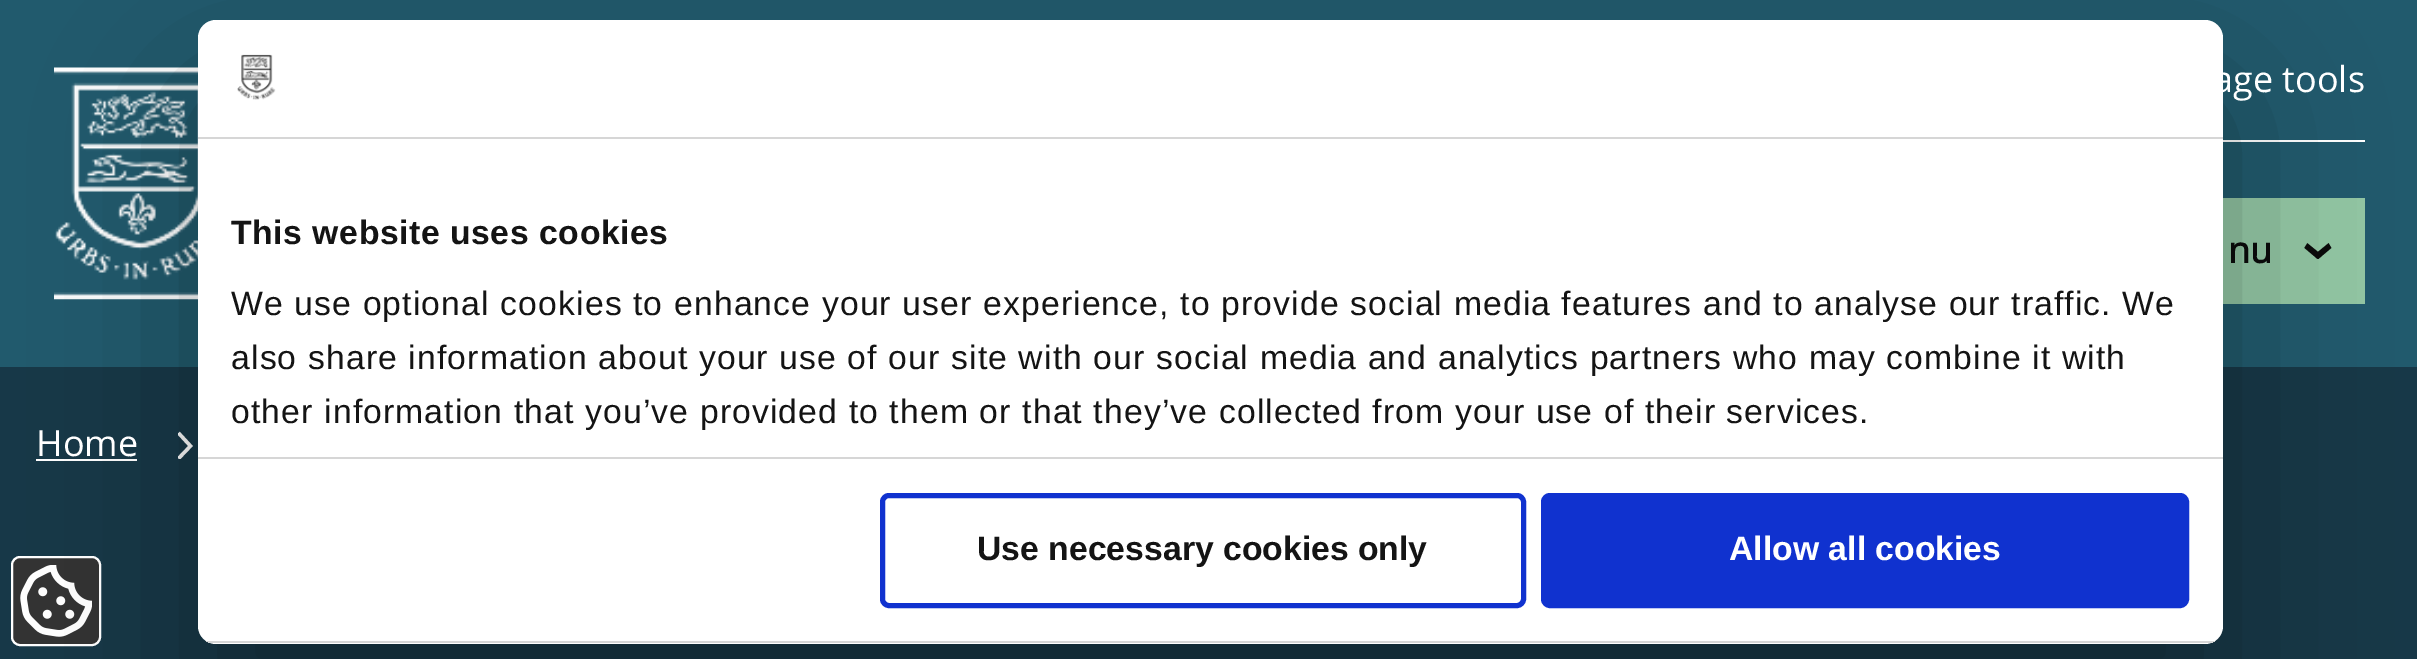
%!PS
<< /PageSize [2417 659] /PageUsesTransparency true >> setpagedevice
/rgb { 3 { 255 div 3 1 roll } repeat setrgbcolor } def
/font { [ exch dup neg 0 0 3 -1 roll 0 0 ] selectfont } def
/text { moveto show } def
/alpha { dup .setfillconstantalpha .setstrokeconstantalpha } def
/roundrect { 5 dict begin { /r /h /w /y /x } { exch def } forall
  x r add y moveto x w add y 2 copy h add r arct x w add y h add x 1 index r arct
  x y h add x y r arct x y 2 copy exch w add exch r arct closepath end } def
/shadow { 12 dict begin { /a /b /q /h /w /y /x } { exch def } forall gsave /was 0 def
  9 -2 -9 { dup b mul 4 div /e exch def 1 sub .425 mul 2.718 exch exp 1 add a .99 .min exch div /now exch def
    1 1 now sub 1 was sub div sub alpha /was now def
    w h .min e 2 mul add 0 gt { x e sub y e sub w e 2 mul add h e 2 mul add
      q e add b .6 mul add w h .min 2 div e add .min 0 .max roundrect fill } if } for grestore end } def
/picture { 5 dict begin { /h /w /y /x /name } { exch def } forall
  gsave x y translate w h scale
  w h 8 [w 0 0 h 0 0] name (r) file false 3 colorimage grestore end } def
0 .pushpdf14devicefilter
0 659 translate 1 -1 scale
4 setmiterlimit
33 90 109 rgb
0 0 2417 659 rectfill
(img_01.rgb) 54 67 144 233 picture
255 255 255 rgb
2223 140 142 2 rectfill
146 198 163 rgb
2223 198 142 106 rectfill
23 56 72 rgb
0 367 2417 292 rectfill
255 255 255 rgb
36 459 101 2 rectfill
gsave
178 430 16 29 rectclip
3.4 setlinewidth
178.5 433 moveto 12 13 rlineto -12 12.5 rlineto stroke
grestore
51 51 51 rgb
12 557 88 88 8 roundrect gsave fill grestore
255 255 255 rgb
2 setlinewidth
stroke
(img_03.rgb) 20 565 72 72 picture
0 0 0 rgb
198 92 2025 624 18 76.5 0.3 shadow
255 255 255 rgb
198 20 2025 624 18 roundrect fill
214 214 214 rgb
198 137 2025 2 rectfill
(img_02.rgb) 237 54 39 46 picture
198 457 2025 2 rectfill
gsave
198 20 2025 624 18 roundrect clip newpath
198 641 2025 2 rectfill
grestore
16 50 207 rgb
5 setlinewidth
882.5 495.5 641 110 6.5 roundrect stroke
1543.5 495.5 643 110 6.5 roundrect gsave fill grestore
stroke
/OpenSans-Regular 36 font
255 255 255 rgb
(age tools) 2213 92 text
/OpenSans-Bold 36 font
10 10 10 rgb
(nu) 2228 263 text
/OpenSans-Bold 61 font
gsave 2301 241 translate 90 rotate 0 0 moveto (›) show grestore
/OpenSans-Regular 36 font
255 255 255 rgb
(Home) 36 456 text
/LiberationSans-Bold 33.75 font
20 20 20 rgb
231 244 moveto 0.55 0 (This website uses cookies) ashow
/LiberationSans-Regular 33.75 font
231 315 moveto 1.12 0 (We use optional cookies to enhance your user experience, to provide social media features and to analyse our traffic. We) ashow
231 369 moveto 1.12 0 (also share information about your use of our site with our social media and analytics partners who may combine it with) ashow
231 423 moveto 1.12 0 (other information that you’ve provided to them or that they’ve collected from your use of their services.) ashow
/LiberationSans-Bold 33.75 font
(Use necessary cookies only) 977 560 text
255 255 255 rgb
(Allow all cookies) 1729 560 text
.poppdf14devicefilter showpage
